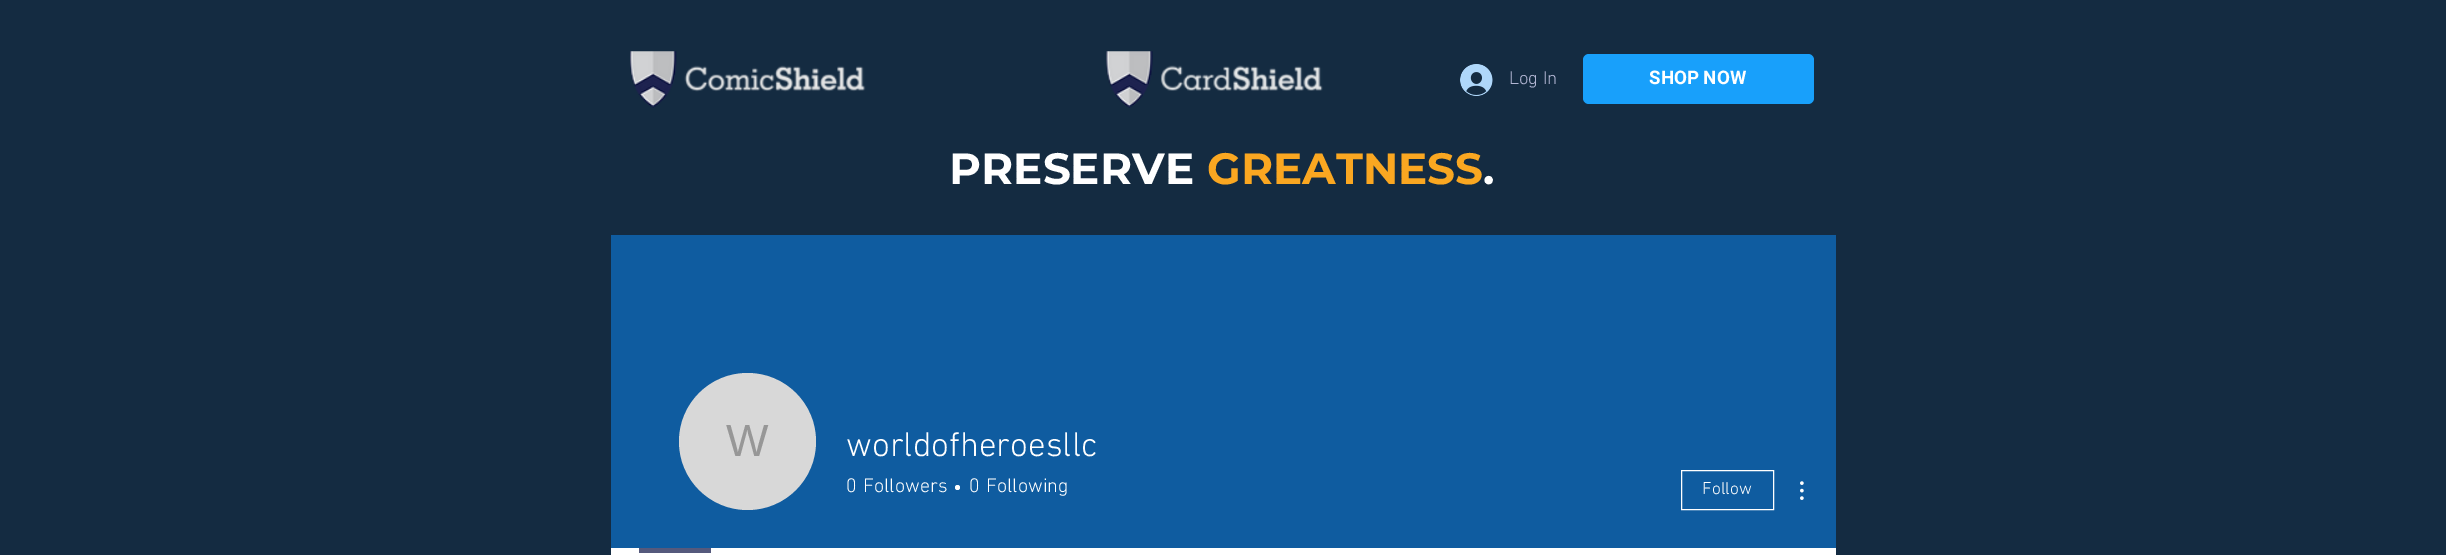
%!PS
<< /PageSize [2446 555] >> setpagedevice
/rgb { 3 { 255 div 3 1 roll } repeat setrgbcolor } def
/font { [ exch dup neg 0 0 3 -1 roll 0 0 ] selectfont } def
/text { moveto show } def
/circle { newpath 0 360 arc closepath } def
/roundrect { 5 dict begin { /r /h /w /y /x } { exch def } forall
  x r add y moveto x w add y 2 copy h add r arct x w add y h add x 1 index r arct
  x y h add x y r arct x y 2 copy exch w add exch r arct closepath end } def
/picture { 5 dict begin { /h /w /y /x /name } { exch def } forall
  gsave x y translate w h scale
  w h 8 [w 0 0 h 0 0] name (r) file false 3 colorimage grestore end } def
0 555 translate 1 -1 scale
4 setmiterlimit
20 43 65 rgb
0 0 2446 555 rectfill
(img_01.rgb) 630 51 47 57 picture
(img_02.rgb) 684 65 182 27 picture
(img_03.rgb) 1106 51 47 57 picture
(img_04.rgb) 1160 65 163 26 picture
(img_05.rgb) 1460 64 33 32 picture
24 160 251 rgb
1583 54 231 50 6 roundrect fill
15 92 160 rgb
611 235 1225 313 rectfill
216 216 216 rgb
747.5 441.5 68.5 circle fill
255 255 255 rgb
957.5 487.5 2.5 circle fill
1681.5 470.5 92 39 rectstroke
(img_06.rgb) 1800 481 4 19 picture
611 548 1225 7 rectfill
85 89 124 rgb
639 548 72 5 rectfill
/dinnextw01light-Light 18.75 font
178 182 211 rgb
(Log In) 1509 84 text
/Roboto-Bold 18.75 font
255 255 255 rgb
(SHOP NOW) 1649 84 text
/Montserrat-Bold 43.75 font
(PRESERVE) 949 184 text
250 167 33 rgb
(GREATNESS) 1207 184 text
255 255 255 rgb
(.) 1483 184 text
/LiberationSans-Regular 45 font
151 151 151 rgb
(W) 726 456 text
/dinnextw01light-Light 35 font
255 255 255 rgb
(worldofheroesllc) 846 456 text
/dinnextw01light-Light 20 font
(0) 846 492 text
(Followers) 863 492 text
(0) 969 492 text
(Following) 986 492 text
/dinnextw01light-Light 17.5 font
(Follow) 1702 494 text
showpage
